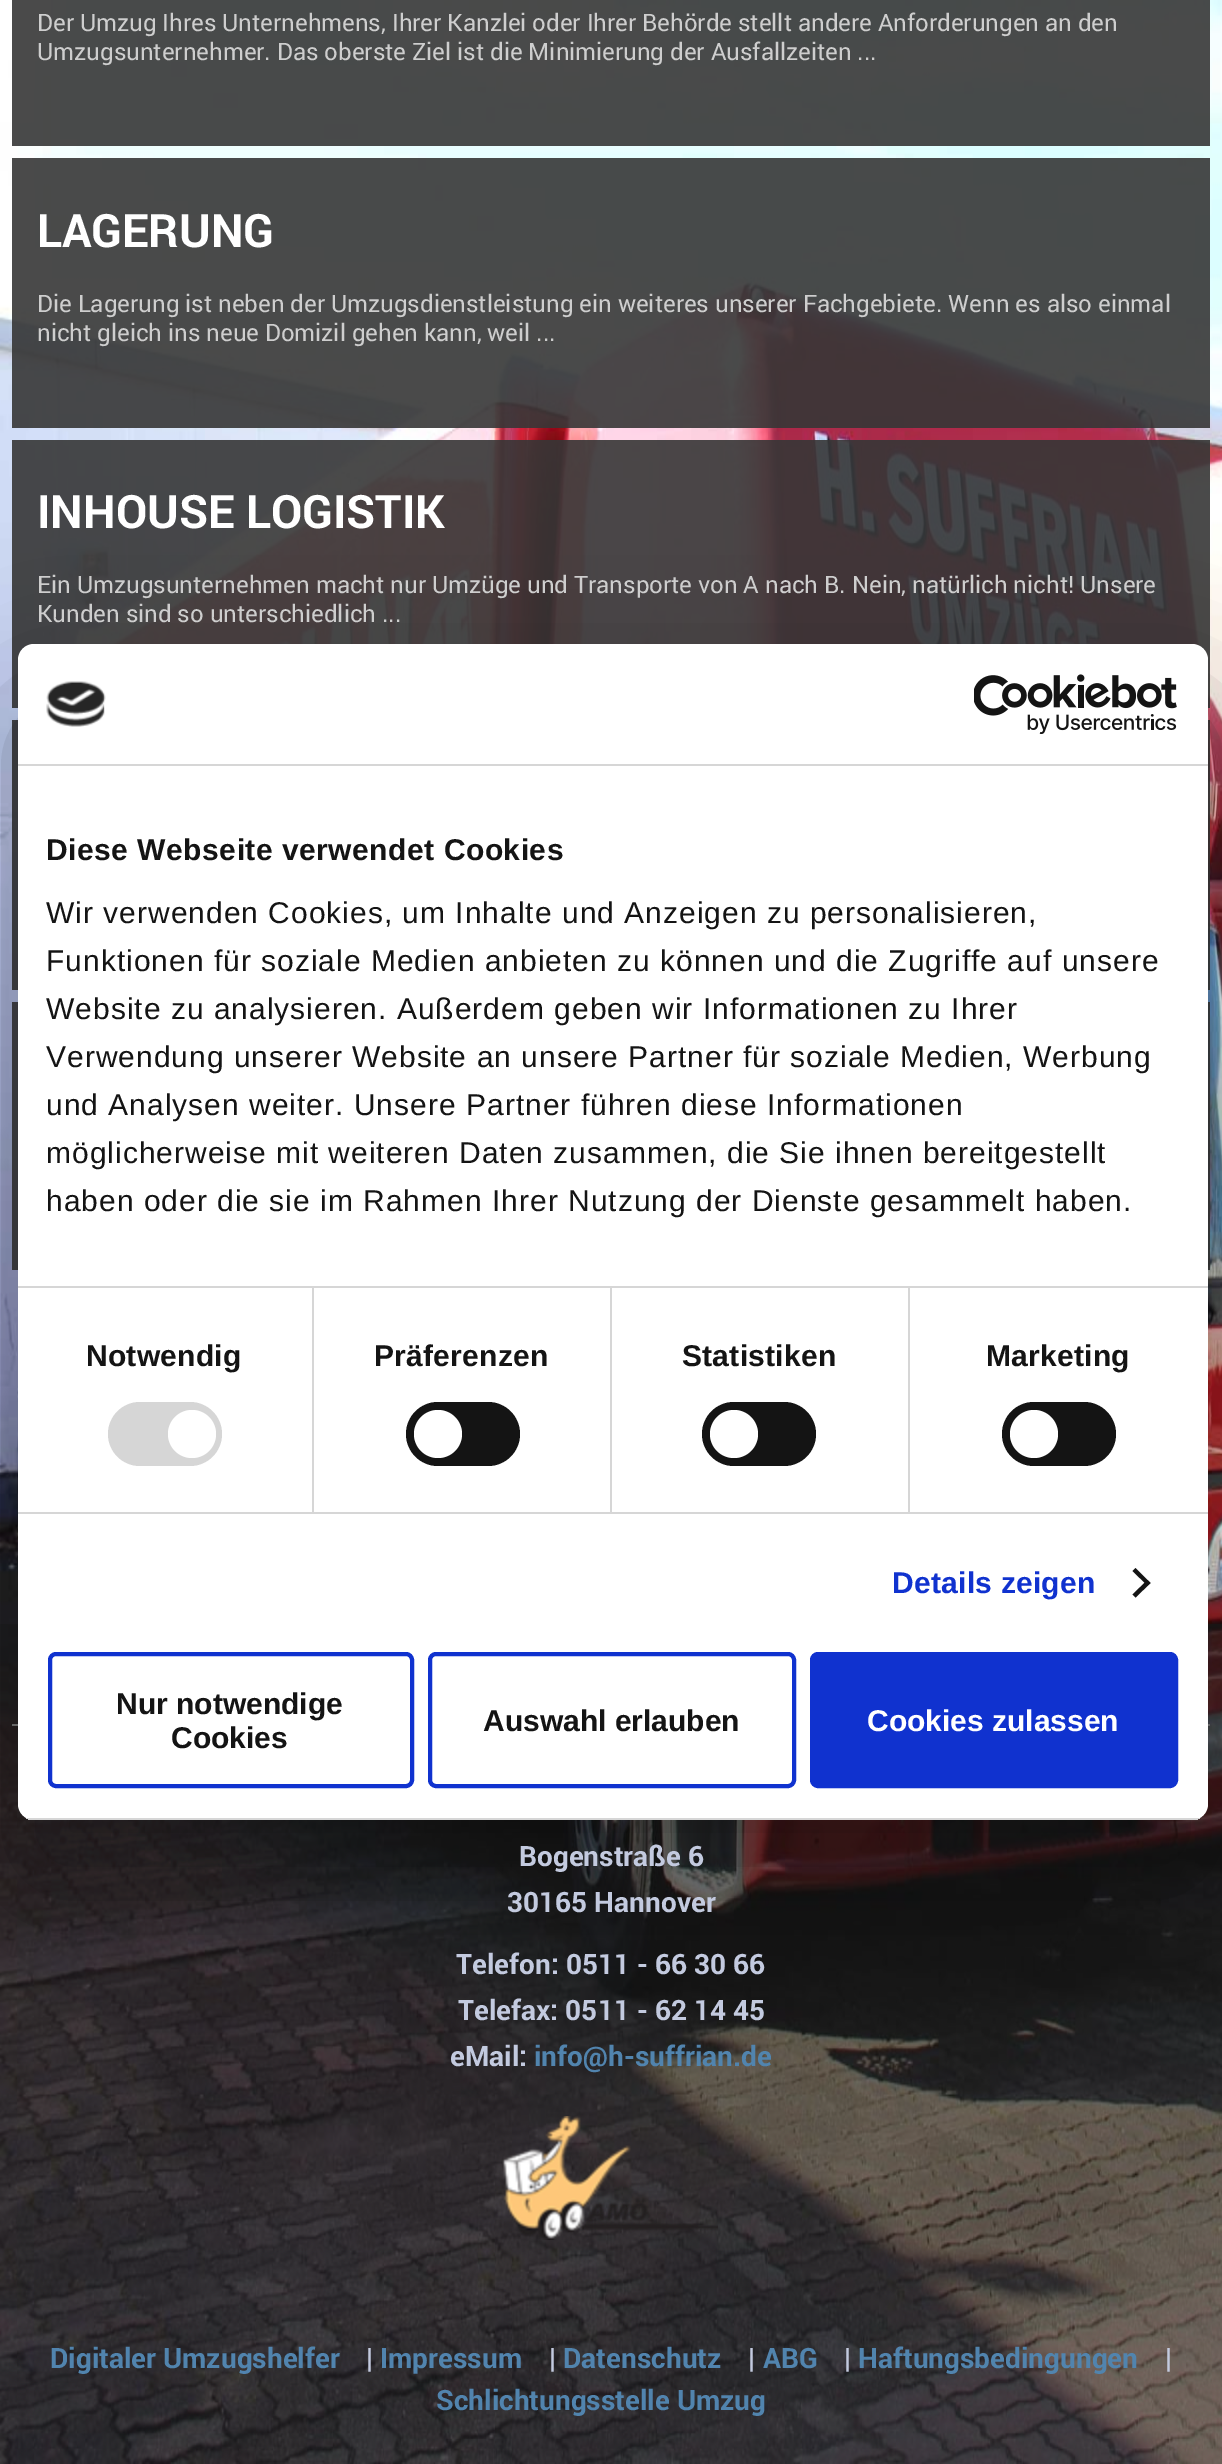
%!PS
<< /PageSize [1222 2464] /PageUsesTransparency true >> setpagedevice
/rgb { 3 { 255 div 3 1 roll } repeat setrgbcolor } def
/font { [ exch dup neg 0 0 3 -1 roll 0 0 ] selectfont } def
/text { moveto show } def
/alpha { dup .setfillconstantalpha .setstrokeconstantalpha } def
/circle { newpath 0 360 arc closepath } def
/roundrect { 5 dict begin { /r /h /w /y /x } { exch def } forall
  x r add y moveto x w add y 2 copy h add r arct x w add y h add x 1 index r arct
  x y h add x y r arct x y 2 copy exch w add exch r arct closepath end } def
/shadow { 12 dict begin { /a /b /q /h /w /y /x } { exch def } forall gsave /was 0 def
  9 -2 -9 { dup b mul 4 div /e exch def 1 sub .425 mul 2.718 exch exp 1 add a .99 .min exch div /now exch def
    1 1 now sub 1 was sub div sub alpha /was now def
    w h .min e 2 mul add 0 gt { x e sub y e sub w e 2 mul add h e 2 mul add
      q e add b .6 mul add w h .min 2 div e add .min 0 .max roundrect fill } if } for grestore end } def
/picture { 5 dict begin { /h /w /y /x /name } { exch def } forall
  gsave x y translate w h scale
  w h 8 [w 0 0 h 0 0] name (r) file false 3 colorimage grestore end } def
0 .pushpdf14devicefilter
0 2464 translate 1 -1 scale
4 setmiterlimit
255 255 255 rgb
0 0 1222 2464 rectfill
(img_01.rgb) 0 0 1222 2464 picture
0.9 alpha
54 54 54 rgb
12 0 1198 146 rectfill
12 158 1198 270 rectfill
12 440 1198 268 rectfill
12 720 1198 270 rectfill
12 1002 1198 268 rectfill
0.6 alpha
27 27 27 rgb
0 1624 1222 840 rectfill
1 alpha
119 119 119 rgb
12 1724 1198 2 rectfill
(img_02.rgb) 502 2116 216 124 picture
0 0 0 rgb
18 708 1190 1176 16 68 0.3 shadow
255 255 255 rgb
18 644 1190 1176 16 roundrect fill
214 214 214 rgb
18 764 1190 2 rectfill
(img_03.rgb) 46 681 60 46 picture
(img_04.rgb) 974 674 203 60 picture
18 1286 1190 2 rectfill
18 1512 1190 2 rectfill
312 1288 2 224 rectfill
108 1402 114 64 32 roundrect fill
255 255 255 rgb
192 1434 24 circle fill
214 214 214 rgb
610 1288 2 224 rectfill
20 20 20 rgb
406 1402 114 64 32 roundrect fill
255 255 255 rgb
438 1434 24 circle fill
214 214 214 rgb
908 1288 2 224 rectfill
20 20 20 rgb
702 1402 114 64 32 roundrect fill
255 255 255 rgb
734 1434 24 circle fill
20 20 20 rgb
1002 1402 114 64 32 roundrect fill
255 255 255 rgb
1034 1434 24 circle fill
20 20 20 rgb
1135.5 1568 moveto 15 15 rlineto -3 2.5 rlineto -15 -14.5 rlineto closepath fill
1147.5 1580 moveto 3 3 rlineto -15 14.5 rlineto -3 -3 rlineto closepath fill
gsave
18 644 1190 1176 16 roundrect clip newpath
214 214 214 rgb
18 1818 1190 2 rectfill
grestore
16 50 207 rgb
4 setlinewidth
50 1654 362 132 6 roundrect stroke
430 1654 364 132 6 roundrect stroke
812 1654 364 132 6 roundrect gsave fill grestore
stroke
/Roboto-Regular 24 font
206 206 206 rgb
(Der Umzug Ihres Unternehmens, Ihrer Kanzlei oder Ihrer Behörde stellt andere Anforderungen an den) 37 31 text
(Umzugsunternehmer. Das oberste Ziel ist die Minimierung der Ausfallzeiten ...) 37 60 text
/Roboto-Bold 46 font
255 255 255 rgb
(LAGERUNG) 37 247 text
/Roboto-Regular 24 font
206 206 206 rgb
(Die Lagerung ist neben der Umzugsdienstleistung ein weiteres unserer Fachgebiete. Wenn es also einmal) 37 312 text
(nicht gleich ins neue Domizil gehen kann, weil ...) 37 341 text
/Roboto-Bold 46 font
255 255 255 rgb
(INHOUSE LOGISTIK) 37 528 text
/Roboto-Regular 24 font
206 206 206 rgb
(Ein Umzugsunternehmen macht nur Umzüge und Transporte von A nach B. Nein, natürlich nicht! Unsere) 37 593 text
(Kunden sind so unterschiedlich ...) 37 622 text
/Roboto-Bold 28 font
195 202 223 rgb
(Bogenstraße 6) 519 1866 text
(30165 Hannover) 507 1912 text
(Telefon: 0511 - 66 30 66) 456 1974 text
(Telefax: 0511 - 62 14 45) 458 2020 text
(eMail:) 450 2066 text
81 132 174 rgb
(info@h-suffrian.de) 534 2066 text
(Digitaler Umzugshelfer) 50 2368 text
195 202 223 rgb
(|) 366 2368 text
81 132 174 rgb
(Impressum) 380 2368 text
195 202 223 rgb
(|) 549 2368 text
81 132 174 rgb
(Datenschutz) 563 2368 text
195 202 223 rgb
(|) 748 2368 text
81 132 174 rgb
(ABG) 763 2368 text
195 202 223 rgb
(|) 844 2368 text
81 132 174 rgb
(Haftungsbedingungen) 858 2368 text
195 202 223 rgb
(|) 1165 2368 text
81 132 174 rgb
(Schlichtungsstelle Umzug) 436 2410 text
/LiberationSans-Bold 30 font
20 20 20 rgb
46 860 moveto 0.5 0 (Diese Webseite verwendet Cookies) ashow
/LiberationSans-Regular 30 font
46 923 moveto 1 0 (Wir verwenden Cookies, um Inhalte und Anzeigen zu personalisieren,) ashow
46 971 moveto 1 0 (Funktionen für soziale Medien anbieten zu können und die Zugriffe auf unsere) ashow
46 1019 moveto 1 0 (Website zu analysieren. Außerdem geben wir Informationen zu Ihrer) ashow
46 1067 moveto 1 0 (Verwendung unserer Website an unsere Partner für soziale Medien, Werbung) ashow
46 1115 moveto 1 0 (und Analysen weiter. Unsere Partner führen diese Informationen) ashow
46 1163 moveto 1 0 (möglicherweise mit weiteren Daten zusammen, die Sie ihnen bereitgestellt) ashow
46 1211 moveto 1 0 (haben oder die sie im Rahmen Ihrer Nutzung der Dienste gesammelt haben.) ashow
/LiberationSans-Bold 30 font
86 1366 moveto 0.25 0 (Notwendig) ashow
374 1366 moveto 0.25 0 (Präferenzen) ashow
682 1366 moveto 0.25 0 (Statistiken) ashow
986 1366 moveto 0.25 0 (Marketing) ashow
16 50 207 rgb
892 1593 moveto 0.25 0 (Details zeigen) ashow
20 20 20 rgb
(Nur notwendige) 116 1714 text
(Cookies) 171 1748 text
(Auswahl erlauben) 483 1731 text
255 255 255 rgb
(Cookies zulassen) 867 1731 text
.poppdf14devicefilter showpage
